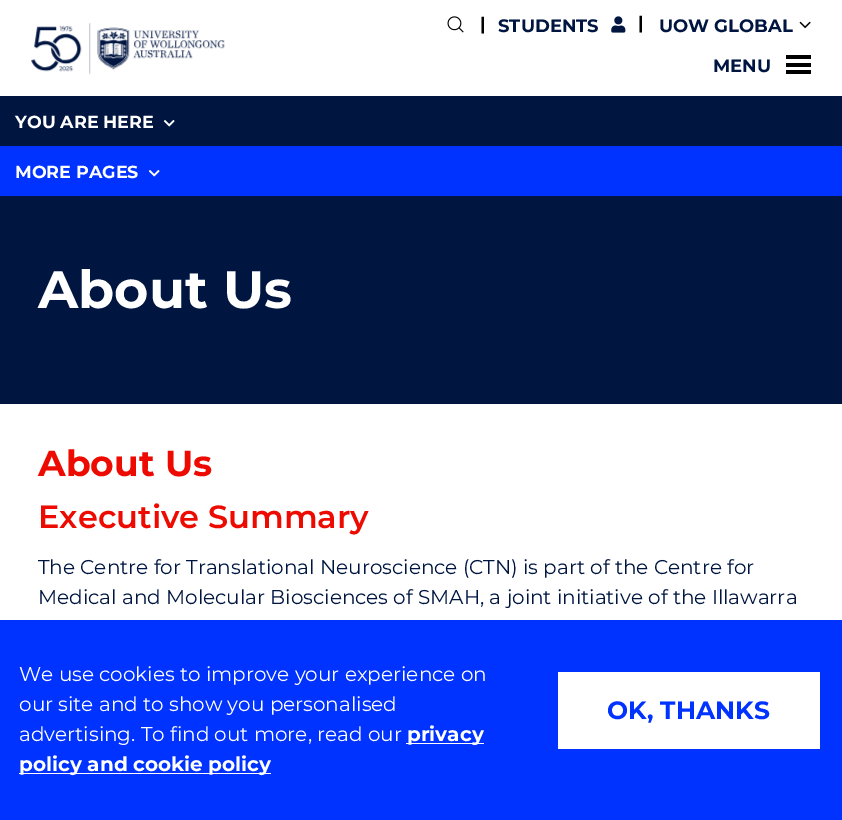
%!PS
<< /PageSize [842 820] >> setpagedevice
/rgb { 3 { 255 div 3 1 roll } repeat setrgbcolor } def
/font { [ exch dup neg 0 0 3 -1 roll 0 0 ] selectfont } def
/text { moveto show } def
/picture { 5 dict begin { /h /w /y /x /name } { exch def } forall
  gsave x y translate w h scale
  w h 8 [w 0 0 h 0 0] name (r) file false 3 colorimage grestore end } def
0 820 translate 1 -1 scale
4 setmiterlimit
255 255 255 rgb
0 0 842 820 rectfill
(img_01.rgb) 31 23 194 52 picture
(img_02.rgb) 447 16 17 17 picture
(img_03.rgb) 611 16 15 17 picture
(img_04.rgb) 799 21 12 8 picture
0 0 0 rgb
786 55 25 4 rectfill
786 63 25 4 rectfill
786 70 25 4 rectfill
0 22 65 rgb
0 96 842 308 rectfill
(img_05.rgb) 163 120 12 7 picture
0 51 255 rgb
0 146 842 50 rectfill
(img_06.rgb) 148 170 12 7 picture
0 620 842 200 rectfill
255 255 255 rgb
406 743 78 1 rectfill
19 773 252 1 rectfill
558 672 262 77 rectfill
/Montserrat-Bold 18 font
0 0 0 rgb
(|) 480 30 text
0 22 65 rgb
(STUDENTS) 498 32 text
0 0 0 rgb
(|) 638 29 text
0 22 65 rgb
(UOW GLOBAL) 659 32 text
(MENU) 713 72 text
/Montserrat-Bold 17.5 font
255 255 255 rgb
(YOU ARE HERE) 15 128 text
(MORE PAGES) 15 178 text
/Montserrat-Bold 52.5 font
(About Us) 38 308 text
/Montserrat-Bold 36 font
237 10 0 rgb
(About Us) 38 476 text
/Montserrat-SemiBold 32 font
(Executive Summary) 38 528 text
/Montserrat-Regular 20 font
0 22 65 rgb
(The Centre for Translational Neuroscience \(CTN\) is part of the Centre for) 38 574 text
(Medical and Molecular Biosciences of SMAH, a joint initiative of the Illawarra) 38 604 text
255 255 255 rgb
(We use cookies to improve your experience on) 19 681 text
(our site and to show you personalised) 19 711 text
(advertising. To find out more, read our) 19 741 text
/Montserrat-Bold 20 font
(privacy) 407 741 text
(policy and cookie policy) 19 771 text
/Montserrat-Bold 25 font
0 51 255 rgb
(OK, THANKS) 607 719 text
showpage
